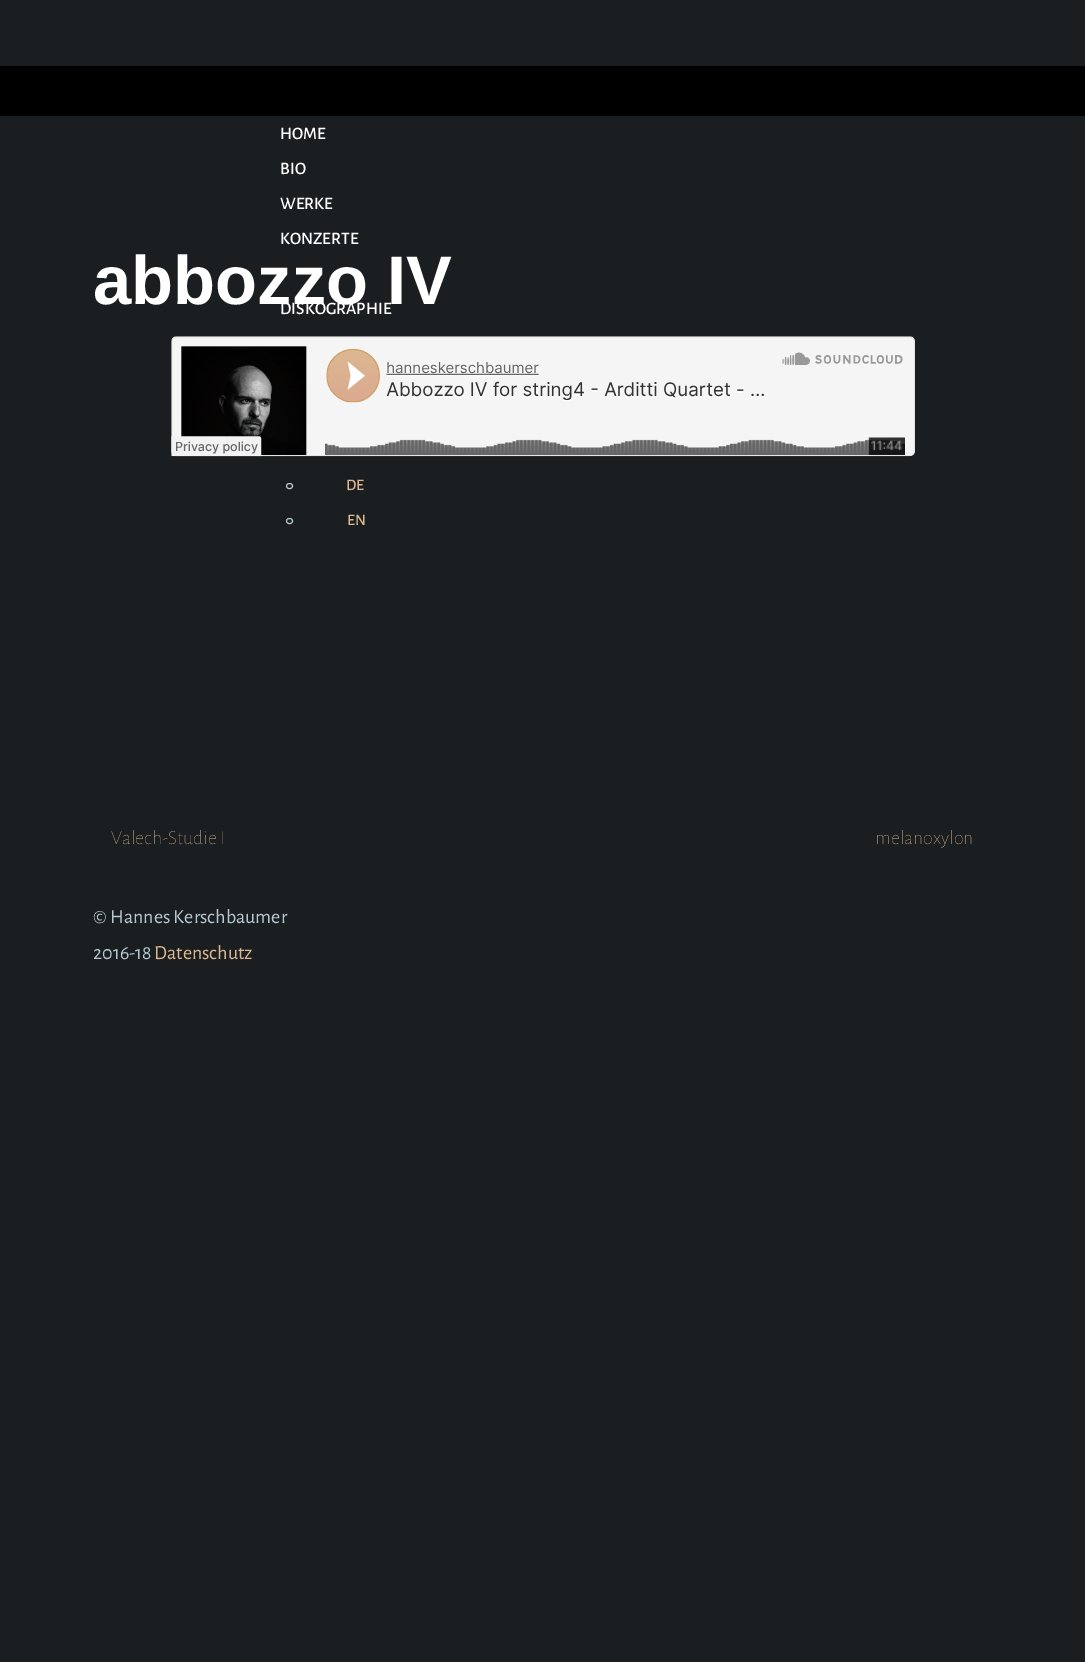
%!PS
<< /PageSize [1085 1662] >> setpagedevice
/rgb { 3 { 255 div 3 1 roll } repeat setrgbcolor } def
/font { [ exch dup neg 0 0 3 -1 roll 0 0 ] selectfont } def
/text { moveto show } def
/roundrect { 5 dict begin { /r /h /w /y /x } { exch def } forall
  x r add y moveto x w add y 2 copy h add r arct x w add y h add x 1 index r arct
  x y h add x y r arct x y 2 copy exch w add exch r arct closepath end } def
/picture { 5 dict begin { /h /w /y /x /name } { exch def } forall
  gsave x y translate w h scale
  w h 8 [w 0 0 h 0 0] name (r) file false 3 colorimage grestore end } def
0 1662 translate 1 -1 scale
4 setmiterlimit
27 30 33 rgb
0 0 1085 1662 rectfill
0 0 0 rgb
0 66 1085 50 rectfill
182 201 211 rgb
286.5 483.5 6 5 2.5 roundrect stroke
286.5 518.5 6 5 2.5 roundrect stroke
(img_01.rgb) 171 336 744 121 picture
/AlegreyaSans-Medium 17.5 font
255 255 255 rgb
(HOME) 280 139 text
(BIO) 280 174 text
(WERKE) 280 209 text
(KONZERTE) 280 244 text
(DISKOGRAPHIE) 280 314 text
/AlegreyaSans-Medium 16 font
219 184 145 rgb
(DE) 346 490 text
(EN) 347 525 text
/LiberationSans-Bold 68.75 font
255 255 255 rgb
(abbozzo IV) 93 304 text
/AlegreyaSans-Thin 20 font
219 184 145 rgb
(Valech-Studie I) 111 844 text
(melanoxylon) 875 844 text
/AlegreyaSans-Regular 20 font
182 201 211 rgb
(© Hannes Kerschbaumer) 93 923 text
(2016-18) 93 959 text
219 184 145 rgb
(Datenschutz) 154 959 text
showpage
